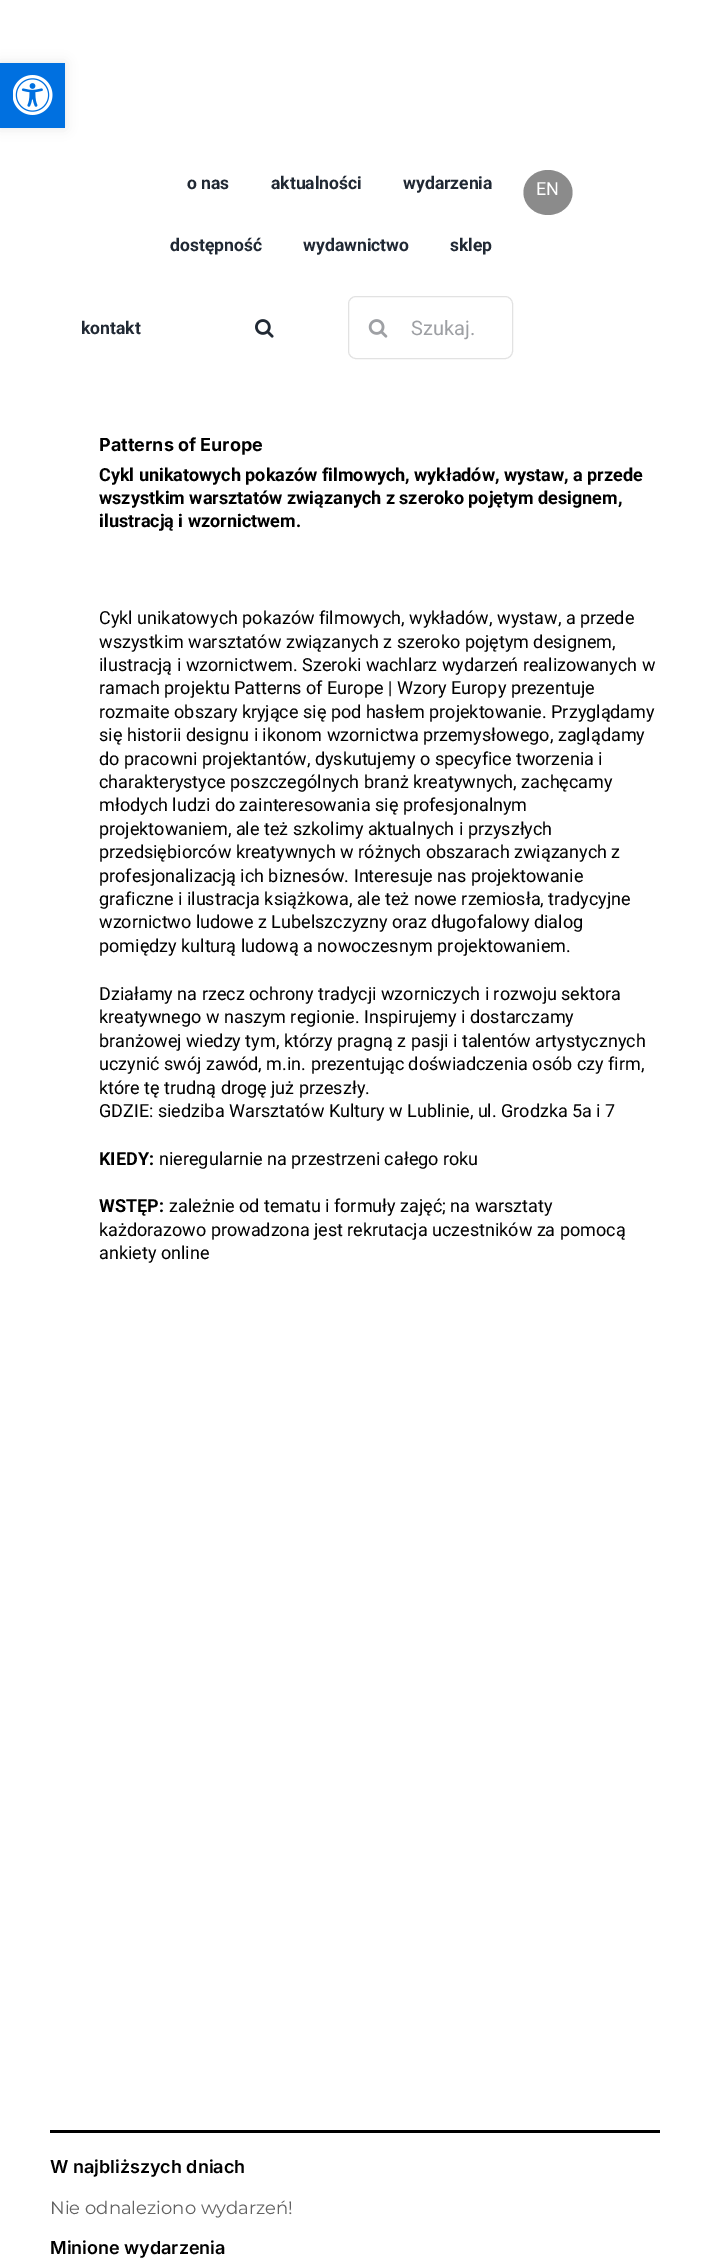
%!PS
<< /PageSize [709 2267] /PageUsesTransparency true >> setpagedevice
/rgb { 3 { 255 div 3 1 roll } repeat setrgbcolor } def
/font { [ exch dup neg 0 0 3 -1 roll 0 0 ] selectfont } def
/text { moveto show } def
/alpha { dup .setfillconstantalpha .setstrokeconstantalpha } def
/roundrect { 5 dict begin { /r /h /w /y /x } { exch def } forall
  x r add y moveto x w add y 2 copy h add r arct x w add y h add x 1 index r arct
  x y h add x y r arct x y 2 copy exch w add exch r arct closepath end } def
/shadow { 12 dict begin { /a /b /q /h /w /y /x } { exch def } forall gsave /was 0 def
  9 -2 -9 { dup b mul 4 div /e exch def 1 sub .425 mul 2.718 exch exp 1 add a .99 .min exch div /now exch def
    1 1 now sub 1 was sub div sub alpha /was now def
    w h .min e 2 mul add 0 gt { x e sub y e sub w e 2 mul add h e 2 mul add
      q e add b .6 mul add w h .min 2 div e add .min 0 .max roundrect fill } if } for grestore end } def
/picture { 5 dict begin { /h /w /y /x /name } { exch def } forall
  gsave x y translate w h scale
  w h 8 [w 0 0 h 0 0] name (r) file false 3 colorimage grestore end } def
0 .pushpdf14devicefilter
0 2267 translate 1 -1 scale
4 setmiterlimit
255 255 255 rgb
0 0 709 2267 rectfill
0 0 0 rgb
0 63 65 65 0 6 0.1 shadow
0 112 224 rgb
0 63 65 65 rectfill
(img_01.rgb) 13 75 40 40 picture
(img_02.rgb) 255 319 19 19 picture
226 226 226 rgb
348.5 296.5 164 62 7.5 roundrect stroke
(img_03.rgb) 368 319 20 19 picture
139 139 139 rgb
548 170 moveto 13.5 0 24.5 10 24.5 22.5 rcurveto 0 12.5 -11 22.5 -24.5 22.5 rcurveto -13.5 0 -24.5 -10 -24.5 -22.5 rcurveto 0 -12.5 11 -22.5 24.5 -22.5 rcurveto closepath fill
0 0 0 rgb
50 2130 610 3 rectfill
/Roboto-Bold 17.5 font
33 41 52 rgb
(o nas) 187 189 text
(aktualności) 271 189 text
(wydarzenia) 403 189 text
(dostępność) 170 251 text
(wydawnictwo) 303 251 text
(sklep) 450 251 text
(kontakt) 81 334 text
/Roboto-Regular 20 font
158 160 164 rgb
(Szukaj.) 411 335 text
/Roboto-Regular 18 font
255 255 255 rgb
(EN) 536 195 text
/Inter-Bold 18 font
0 0 0 rgb
(Patterns of Europe) 99 451 text
/Roboto-Bold 18 font
(Cykl unikatowych pokazów filmowych, wykładów, wystaw, a przede) 99 481 text
(wszystkim warsztatów związanych z szeroko pojętym designem,) 99 504 text
(ilustracją i wzornictwem.) 99 527 text
/Roboto-Regular 18 font
(Cykl unikatowych pokazów filmowych, wykładów, wystaw, a przede) 99 624 text
(wszystkim warsztatów związanych z szeroko pojętym designem,) 99 648 text
(ilustracją i wzornictwem. Szeroki wachlarz wydarzeń realizowanych w) 99 671 text
(ramach projektu Patterns of Europe | Wzory Europy prezentuje) 99 694 text
(rozmaite obszary kryjące się pod hasłem projektowanie. Przyglądamy) 99 718 text
(się historii designu i ikonom wzornictwa przemysłowego, zaglądamy) 99 741 text
(do pracowni projektantów, dyskutujemy o specyfice tworzenia i) 99 765 text
(charakterystyce poszczególnych branż kreatywnych, zachęcamy) 99 788 text
(młodych ludzi do zainteresowania się profesjonalnym) 99 811 text
(projektowaniem, ale też szkolimy aktualnych i przyszłych) 99 835 text
(przedsiębiorców kreatywnych w różnych obszarach związanych z) 99 858 text
(profesjonalizacją ich biznesów. Interesuje nas projektowanie) 99 882 text
(graficzne i ilustracja książkowa, ale też nowe rzemiosła, tradycyjne) 99 905 text
(wzornictwo ludowe z Lubelszczyzny oraz długofalowy dialog) 99 928 text
(pomiędzy kulturą ludową a nowoczesnym projektowaniem.) 99 952 text
(Działamy na rzecz ochrony tradycji wzorniczych i rozwoju sektora) 99 1000 text
(kreatywnego w naszym regionie. Inspirujemy i dostarczamy) 99 1023 text
(branżowej wiedzy tym, którzy pragną z pasji i talentów artystycznych) 99 1047 text
(uczynić swój zawód, m.in. prezentując doświadczenia osób czy firm,) 99 1070 text
(które tę trudną drogę już przeszły.) 99 1094 text
(GDZIE: siedziba Warsztatów Kultury w Lublinie, ul. Grodzka 5a i 7) 99 1117 text
/Roboto-Bold 18 font
(KIEDY:) 99 1165 text
/Roboto-Regular 18 font
(nieregularnie na przestrzeni całego roku) 159 1165 text
/Roboto-Bold 18 font
(WSTĘP:) 99 1212 text
/Roboto-Regular 18 font
(zależnie od tematu i formuły zajęć; na warsztaty) 169 1212 text
(każdorazowo prowadzona jest rekrutacja uczestników za pomocą) 99 1236 text
(ankiety online) 99 1259 text
/Inter-SemiBold 18 font
(W najbliższych dniach) 50 2173 text
/Montserrat-Regular 18 font
98 98 98 rgb
(Nie odnaleziono wydarzeń!) 50 2214 text
/Inter-SemiBold 18 font
0 0 0 rgb
(Minione wydarzenia) 50 2254 text
.poppdf14devicefilter showpage
